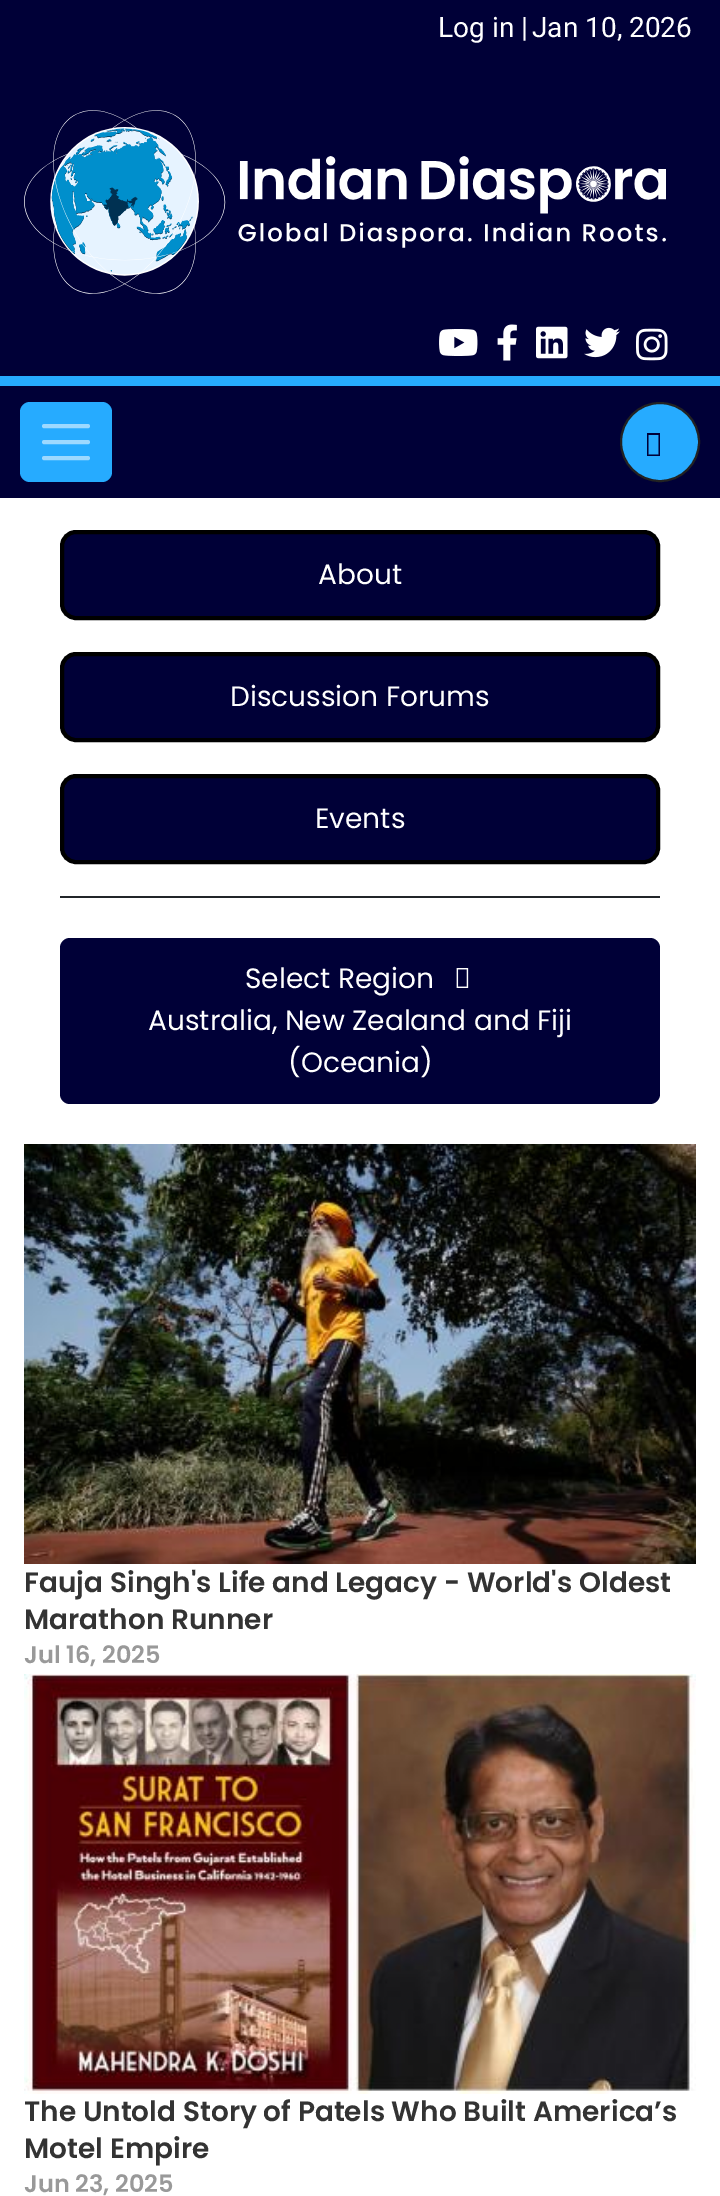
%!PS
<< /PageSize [720 2196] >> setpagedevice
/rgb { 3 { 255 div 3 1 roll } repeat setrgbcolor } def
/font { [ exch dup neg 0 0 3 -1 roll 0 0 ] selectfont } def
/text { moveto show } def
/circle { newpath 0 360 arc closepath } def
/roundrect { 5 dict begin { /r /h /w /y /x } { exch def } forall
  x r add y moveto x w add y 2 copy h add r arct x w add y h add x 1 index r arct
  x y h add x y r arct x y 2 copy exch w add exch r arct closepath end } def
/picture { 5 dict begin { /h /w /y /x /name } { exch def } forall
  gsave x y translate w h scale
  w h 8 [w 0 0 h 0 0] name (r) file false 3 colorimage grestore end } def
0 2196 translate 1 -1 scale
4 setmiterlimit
255 255 255 rgb
0 0 720 2196 rectfill
0 0 55 rgb
0 0 720 376 rectfill
(img_01.rgb) 24 110 642 184 picture
(img_02.rgb) 439 329 39 27 picture
(img_03.rgb) 497 324 20 37 picture
(img_04.rgb) 536 326 32 33 picture
(img_05.rgb) 584 327 36 31 picture
(img_06.rgb) 636 328 32 33 picture
38 171 255 rgb
0 376 720 10 rectfill
0 0 55 rgb
0 386 720 112 rectfill
38 171 255 rgb
20 402 92 80 10 roundrect fill
157 217 255 rgb
4 setlinewidth
1 setlinecap
44 426 moveto 44 0 rlineto 44 442 moveto 44 0 rlineto 44 458 moveto 44 0 rlineto stroke
38 171 255 rgb
660 442 39 circle gsave fill grestore
34 34 34 rgb
2 setlinewidth
0 setlinecap
stroke
0 0 55 rgb
647 456 moveto 0 -23 rlineto 13 0 rlineto 0 23 rlineto closepath 648.5 454.5 moveto 10 0 rlineto 0 -19.5 rlineto -10 0 rlineto closepath fill
33 37 41 rgb
60 896 600 2 rectfill
0 0 55 rgb
62 532 596 86 14 roundrect gsave fill grestore
0 0 0 rgb
4 setlinewidth
stroke
0 0 55 rgb
62 654 596 86 14 roundrect gsave fill grestore
0 0 0 rgb
stroke
0 0 55 rgb
62 776 596 86 14 roundrect gsave fill grestore
0 0 0 rgb
stroke
0 0 55 rgb
60 938 600 166 10 roundrect fill
(img_07.rgb) 456 968 13 20 picture
(img_08.rgb) 24 1144 672 420 picture
(img_09.rgb) 24 1674 672 420 picture
/Roboto-Regular 28 font
255 255 255 rgb
(Log in |) 438 37 text
(Jan 10, 2026) 532 37 text
/Poppins-Regular 28 font
(About) 318 584 text
(Discussion Forums) 230 706 text
(Events) 315 828 text
(Select Region) 245 988 text
(Australia, New Zealand and Fiji) 148 1030 text
(\(Oceania\)) 288 1072 text
/Poppins-SemiBold 28 font
51 51 51 rgb
(Fauja Singh's Life and Legacy - World's Oldest) 24 1592 text
(Marathon Runner) 24 1629 text
/Poppins-SemiBold 24 font
153 153 153 rgb
(Jul 16, 2025) 24 1663 text
/Poppins-SemiBold 28 font
51 51 51 rgb
(The Untold Story of Patels Who Built America’s) 24 2121 text
(Motel Empire) 24 2158 text
/Poppins-SemiBold 24 font
153 153 153 rgb
(Jun 23, 2025) 24 2192 text
showpage
